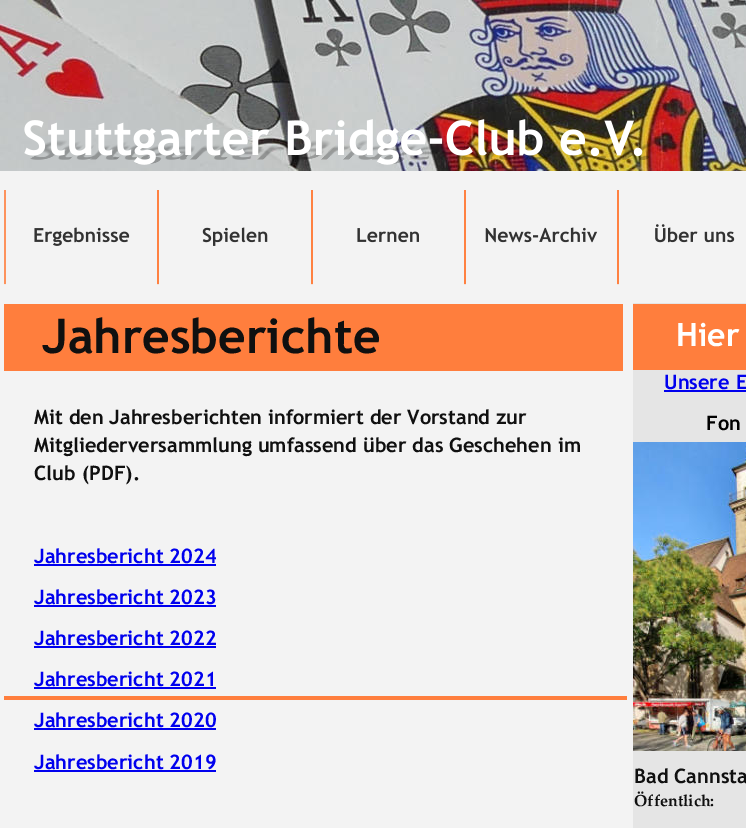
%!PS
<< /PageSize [746 828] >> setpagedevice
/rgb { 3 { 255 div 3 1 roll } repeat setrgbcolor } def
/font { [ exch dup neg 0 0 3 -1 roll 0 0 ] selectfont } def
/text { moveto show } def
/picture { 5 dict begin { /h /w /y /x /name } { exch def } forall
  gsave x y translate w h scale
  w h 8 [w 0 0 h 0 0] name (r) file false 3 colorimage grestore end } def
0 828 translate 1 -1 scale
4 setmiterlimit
243 243 243 rgb
0 0 746 828 rectfill
(img_01.rgb) 4 190 155 95 picture
(img_02.rgb) 157 190 156 95 picture
(img_03.rgb) 311 190 155 95 picture
(img_04.rgb) 464 190 155 95 picture
(img_05.rgb) 617 190 118 95 picture
(img_06.rgb) 0 0 746 171 picture
(img_07.rgb) 24 119 632 46 picture
255 126 61 rgb
4 304 619 67 rectfill
229 229 229 rgb
633 303 113 525 rectfill
255 126 61 rgb
633 304 113 66 rectfill
0 0 238 rgb
664 390 82 2 rectfill
34 564 182 2 rectfill
34 605 182 2 rectfill
34 646 182 2 rectfill
34 687 182 2 rectfill
34 728 182 2 rectfill
34 770 182 2 rectfill
(img_08.rgb) 633 442 113 309 picture
255 126 61 rgb
4 696 623 4 rectfill
/TrebuchetMS-Bold 48 font
16 16 16 rgb
(Jahresberichte) 42 353 text
/TrebuchetMS-Bold 32 font
255 255 255 rgb
(Hier) 676 346 text
/TrebuchetMS-Bold 20 font
0 0 238 rgb
(Unsere E) 664 389 text
0 0 0 rgb
(Fon) 706 430 text
16 16 16 rgb
34 424 moveto -0.25 0 32 (Mit den Jahresberichten informiert der Vorstand zur) widthshow
(Mitgliederversammlung umfassend über das Geschehen im) 34 452 text
(Club \(PDF\).) 34 480 text
0 0 238 rgb
(Jahresbericht 2024) 34 563 text
(Jahresbericht 2023) 34 604 text
(Jahresbericht 2022) 34 645 text
(Jahresbericht 2021) 34 686 text
(Jahresbericht 2020) 34 727 text
(Jahresbericht 2019) 34 769 text
16 16 16 rgb
(Bad Cannsta) 634 783 text
/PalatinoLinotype-Bold 16 font
(Öffentlich:) 634 806 text
showpage
